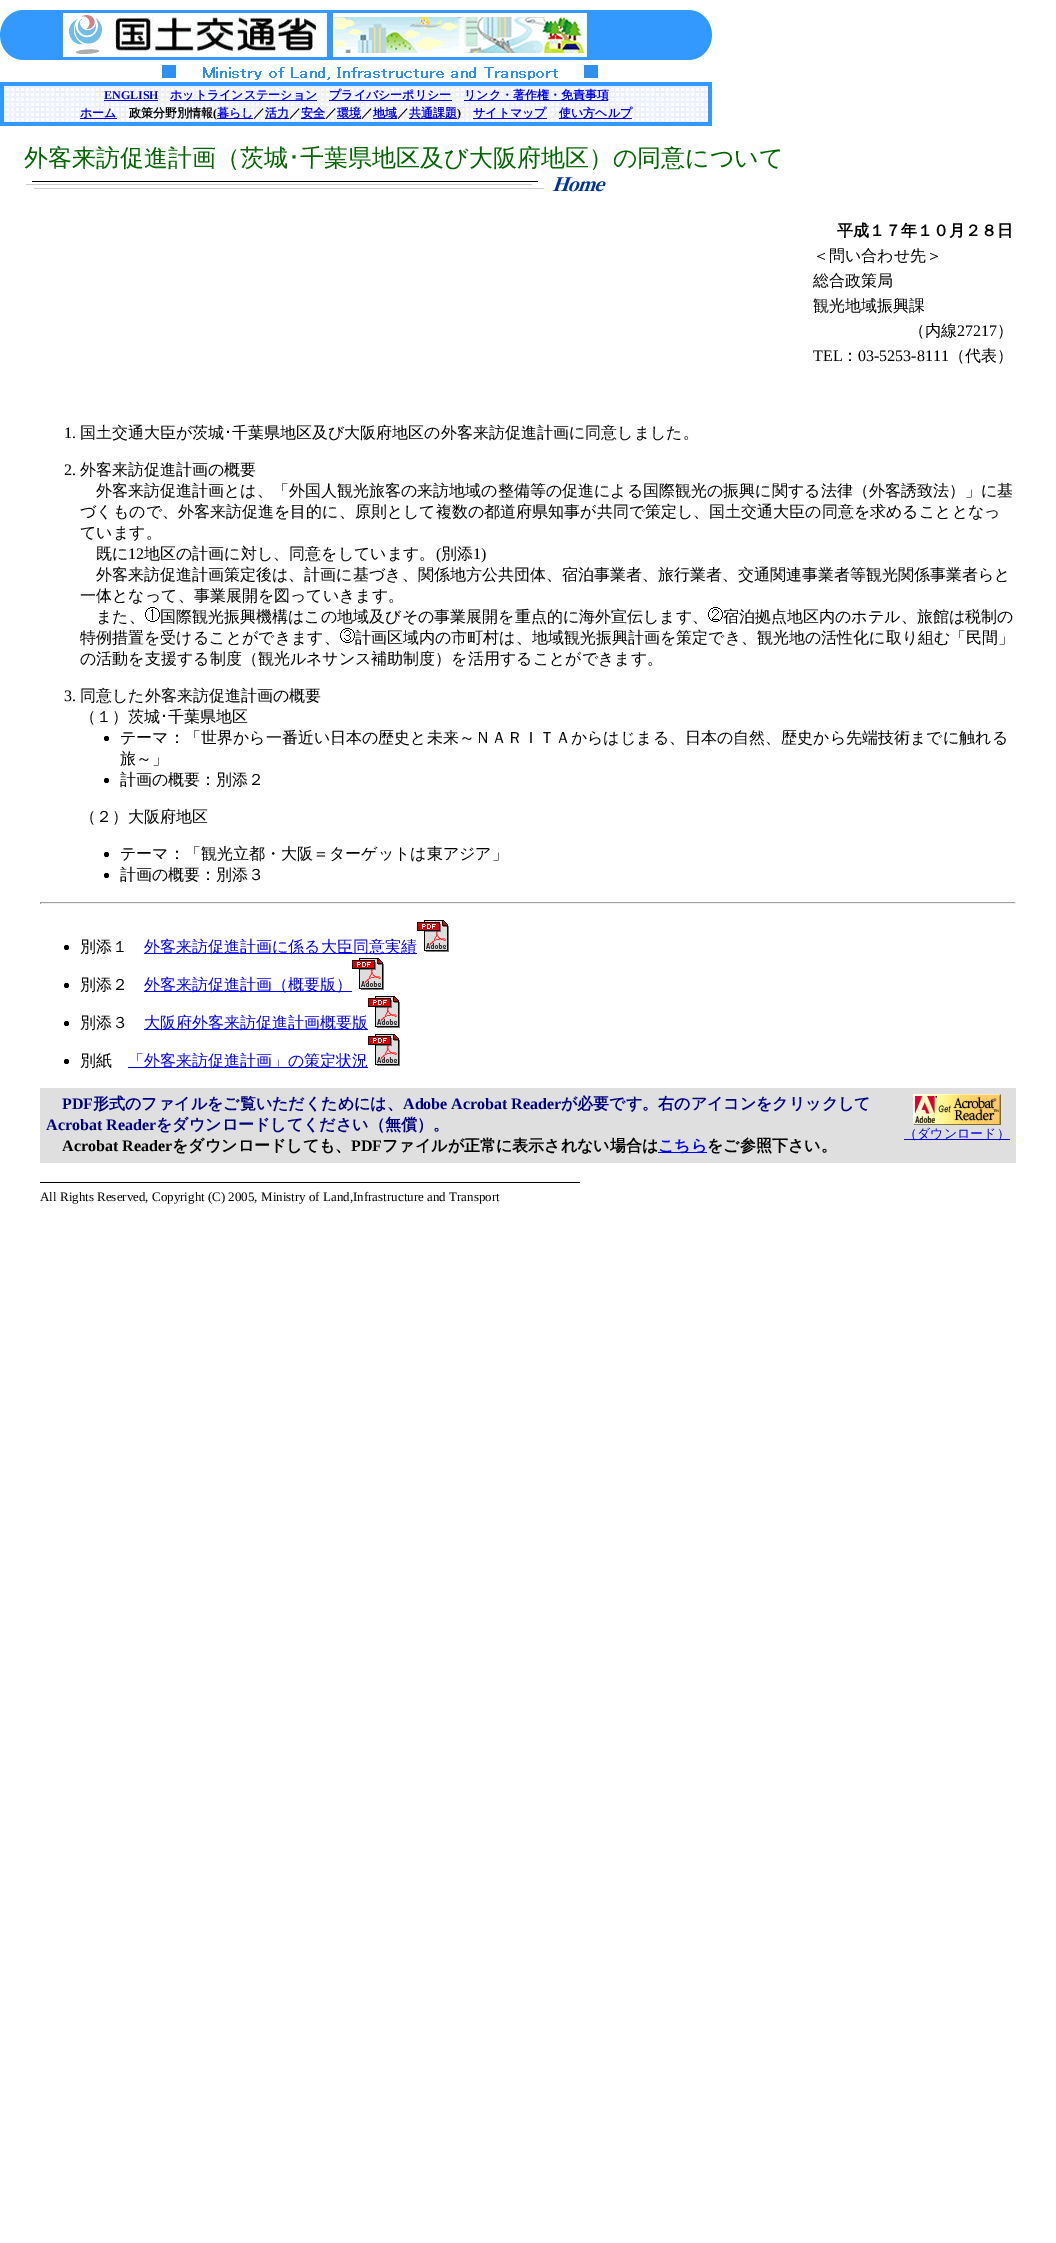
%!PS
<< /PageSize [1056 2243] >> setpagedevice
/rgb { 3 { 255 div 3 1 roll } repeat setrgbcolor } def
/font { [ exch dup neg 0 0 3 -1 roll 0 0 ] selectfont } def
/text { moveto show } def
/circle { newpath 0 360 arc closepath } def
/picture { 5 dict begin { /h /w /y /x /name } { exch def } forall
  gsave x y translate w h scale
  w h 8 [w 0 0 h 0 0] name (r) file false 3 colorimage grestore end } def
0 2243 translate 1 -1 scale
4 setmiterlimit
255 255 255 rgb
0 0 1056 2243 rectfill
(img_01.rgb) 0 10 600 70 picture
(img_02.rgb) 600 10 112 50 picture
(img_03.rgb) 4 86 704 36 picture
51 153 255 rgb
0 82 712 4 rectfill
0 86 4 36 rectfill
0 0 238 rgb
104 100 54 1 rectfill
170 100 147 1 rectfill
329 100 123 1 rectfill
464 100 144 1 rectfill
51 153 255 rgb
708 86 4 36 rectfill
0 0 238 rgb
80 118 37 1 rectfill
217 118 36 1 rectfill
265 118 24 1 rectfill
301 118 24 1 rectfill
337 118 24 1 rectfill
373 118 24 1 rectfill
409 118 48 1 rectfill
473 118 74 1 rectfill
559 118 73 1 rectfill
51 153 255 rgb
0 122 712 4 rectfill
(img_04.rgb) 26 181 498 8 picture
(img_05.rgb) 524 177 82 15 picture
(img_06.rgb) 145 607 15 15 picture
(img_07.rgb) 708 607 15 15 picture
(img_08.rgb) 340 628 15 15 picture
0 0 0 rgb
106.5 738.5 2.5 circle fill
106.5 780.5 2.5 circle fill
106.5 854.5 2.5 circle fill
106.5 875.5 2.5 circle fill
159 159 159 rgb
40 902 976 1 rectfill
238 238 238 rgb
1015 902 1 2 rectfill
40 903 976 1 rectfill
159 159 159 rgb
40 902 1 2 rectfill
0 0 0 rgb
66.5 947.5 2.5 circle fill
0 0 238 rgb
144 953 273 1 rectfill
(img_09.rgb) 417 920 32 32 picture
0 0 0 rgb
66.5 985.5 2.5 circle fill
0 0 238 rgb
144 991 208 1 rectfill
(img_09.rgb) 352 958 32 32 picture
0 0 0 rgb
66.5 1023.5 2.5 circle fill
0 0 238 rgb
144 1029 224 1 rectfill
(img_09.rgb) 368 996 32 32 picture
0 0 0 rgb
66.5 1061.5 2.5 circle fill
0 0 238 rgb
128 1067 240 1 rectfill
(img_09.rgb) 368 1034 32 32 picture
223 223 223 rgb
40 1088 976 75 rectfill
0 0 238 rgb
658 1152 49 1 rectfill
(img_10.rgb) 913 1094 88 31 picture
904 1139 106 1 rectfill
0 0 0 rgb
40 1182 540 1 rectfill
/LiberationSerif-Bold 12 font
0 0 238 rgb
(ENGLISH) 104 99 text
/WenQuanYiZenHei-Bold 12 font
(ホットラインステーション) 170 99 text
(プライバシーポリシー) 329 99 text
(リンク・著作権・免責事項) 464 99 text
(ホーム) 80 117 text
0 0 0 rgb
(政策分野別情報) 129 117 text
/LiberationSerif-Bold 12 font
(\() 213 117 text
/WenQuanYiZenHei-Bold 12 font
0 0 238 rgb
(暮らし) 217 117 text
0 0 0 rgb
(／) 253 117 text
0 0 238 rgb
(活力) 265 117 text
0 0 0 rgb
(／) 289 117 text
0 0 238 rgb
(安全) 301 117 text
0 0 0 rgb
(／) 325 117 text
0 0 238 rgb
(環境) 337 117 text
0 0 0 rgb
(／) 361 117 text
0 0 238 rgb
(地域) 373 117 text
0 0 0 rgb
(／) 397 117 text
0 0 238 rgb
(共通課題) 409 117 text
/LiberationSerif-Bold 12 font
0 0 0 rgb
(\)) 457 117 text
/WenQuanYiZenHei-Bold 12 font
0 0 238 rgb
(サイトマップ) 473 117 text
(使い方ヘルプ) 559 117 text
/WenQuanYiZenHei-Medium 24 font
0 102 0 rgb
(外客来訪促進計画（茨城) 24 166 text
/IPAPGothic-Regular 24 font
(･) 288 166 text
/WenQuanYiZenHei-Medium 24 font
(千葉県地区及び大阪府地区）の同意について) 300 166 text
/WenQuanYiZenHei-Bold 16 font
0 0 0 rgb
(平成１７年１０月２８日) 837 236 text
/WenQuanYiZenHei-Medium 16 font
(＜問い合わせ先＞) 813 261 text
(総合政策局) 813 286 text
(観光地域振興課) 813 311 text
(（内線) 909 336 text
/LiberationSerif-Regular 16 font
(27217) 957 336 text
/WenQuanYiZenHei-Medium 16 font
(）) 997 336 text
/LiberationSerif-Regular 16 font
(TEL) 813 361 text
/WenQuanYiZenHei-Medium 16 font
(：) 842 361 text
/LiberationSerif-Regular 16 font
(03-5253-8111) 858 361 text
/WenQuanYiZenHei-Medium 16 font
(（代表）) 949 361 text
/LiberationSerif-Regular 16 font
(1.) 64 438 text
/WenQuanYiZenHei-Medium 16 font
(国土交通大臣が茨城) 80 438 text
/IPAPGothic-Regular 16 font
(･) 224 438 text
/WenQuanYiZenHei-Medium 16 font
(千葉県地区及び大阪府地区の外客来訪促進計画に同意しました。) 232 438 text
/LiberationSerif-Regular 16 font
(2.) 64 475 text
/WenQuanYiZenHei-Medium 16 font
(外客来訪促進計画の概要) 80 475 text
(外客来訪促進計画とは、「外国人観光旅客の来訪地域の整備等の促進による国際観光の振興に関する法律（外客誘致法）」に基) 96 496 text
(づくもので、外客来訪促進を目的に、原則として複数の都道府県知事が共同で策定し、国土交通大臣の同意を求めることとなっ) 80 517 text
(ています。) 80 538 text
(既に) 96 559 text
/LiberationSerif-Regular 16 font
(12) 128 559 text
/WenQuanYiZenHei-Medium 16 font
(地区の計画に対し、同意をしています。) 144 559 text
/LiberationSerif-Regular 16 font
(\() 436 559 text
/WenQuanYiZenHei-Medium 16 font
(別添) 441 559 text
/LiberationSerif-Regular 16 font
(1\)) 473 559 text
/WenQuanYiZenHei-Medium 16 font
(外客来訪促進計画策定後は、計画に基づき、関係地方公共団体、宿泊事業者、旅行業者、交通関連事業者等観光関係事業者らと) 96 580 text
(一体となって、事業展開を図っていきます。) 80 601 text
(また、) 96 622 text
(国際観光振興機構はこの地域及びその事業展開を重点的に海外宣伝します、) 160 622 text
(宿泊拠点地区内のホテル、旅館は税制の) 723 622 text
(特例措置を受けることができます、) 80 643 text
(計画区域内の市町村は、地域観光振興計画を策定でき、観光地の活性化に取り組む「民間」) 355 643 text
(の活動を支援する制度（観光ルネサンス補助制度）を活用することができます。) 80 664 text
/LiberationSerif-Regular 16 font
(3.) 64 701 text
/WenQuanYiZenHei-Medium 16 font
(同意した外客来訪促進計画の概要) 80 701 text
(（１）茨城) 80 722 text
/IPAPGothic-Regular 16 font
(･) 160 722 text
/WenQuanYiZenHei-Medium 16 font
(千葉県地区) 168 722 text
(テーマ：「世界から一番近い日本の歴史と未来～ＮＡＲＩＴＡからはじまる、日本の自然、歴史から先端技術までに触れる) 120 743 text
(旅～」) 120 764 text
(計画の概要：別添２) 120 785 text
(（２）大阪府地区) 80 822 text
(テーマ：「観光立都・大阪＝ターゲットは東アジア」) 120 859 text
(計画の概要：別添３) 120 880 text
(別添１) 80 952 text
0 0 238 rgb
(外客来訪促進計画に係る大臣同意実績) 144 952 text
0 0 0 rgb
(別添２) 80 990 text
0 0 238 rgb
(外客来訪促進計画（概要版）) 144 990 text
0 0 0 rgb
(別添３) 80 1028 text
0 0 238 rgb
(大阪府外客来訪促進計画概要版) 144 1028 text
0 0 0 rgb
(別紙) 80 1066 text
0 0 238 rgb
(「外客来訪促進計画」の策定状況) 128 1066 text
/LiberationSerif-Bold 16 font
0 0 128 rgb
(PDF) 62 1109 text
/WenQuanYiZenHei-Bold 16 font
(形式のファイルをご覧いただくためには、) 93 1109 text
/LiberationSerif-Bold 16 font
(Adobe Acrobat Reader) 403 1109 text
/WenQuanYiZenHei-Bold 16 font
(が必要です。右のアイコンをクリックして) 561 1109 text
/LiberationSerif-Bold 16 font
(Acrobat Reader) 46 1130 text
/WenQuanYiZenHei-Bold 16 font
(をダウンロードしてください（無償）。) 156 1130 text
/LiberationSerif-Bold 16 font
0 0 0 rgb
(Acrobat Reader) 62 1151 text
/WenQuanYiZenHei-Bold 16 font
(をダウンロードしても、) 172 1151 text
/LiberationSerif-Bold 16 font
(PDF) 351 1151 text
/WenQuanYiZenHei-Bold 16 font
(ファイルが正常に表示されない場合は) 382 1151 text
0 0 238 rgb
(こちら) 658 1151 text
0 0 0 rgb
(をご参照下さい。) 707 1151 text
/WenQuanYiZenHei-Medium 13 font
0 0 238 rgb
(（ダウンロード）) 904 1138 text
/LiberationSerif-Regular 13 font
0 0 0 rgb
(All Rights Reserved, Copyright \(C\) 2005, Ministry of Land,Infrastructure and Transport) 40 1201 text
showpage
